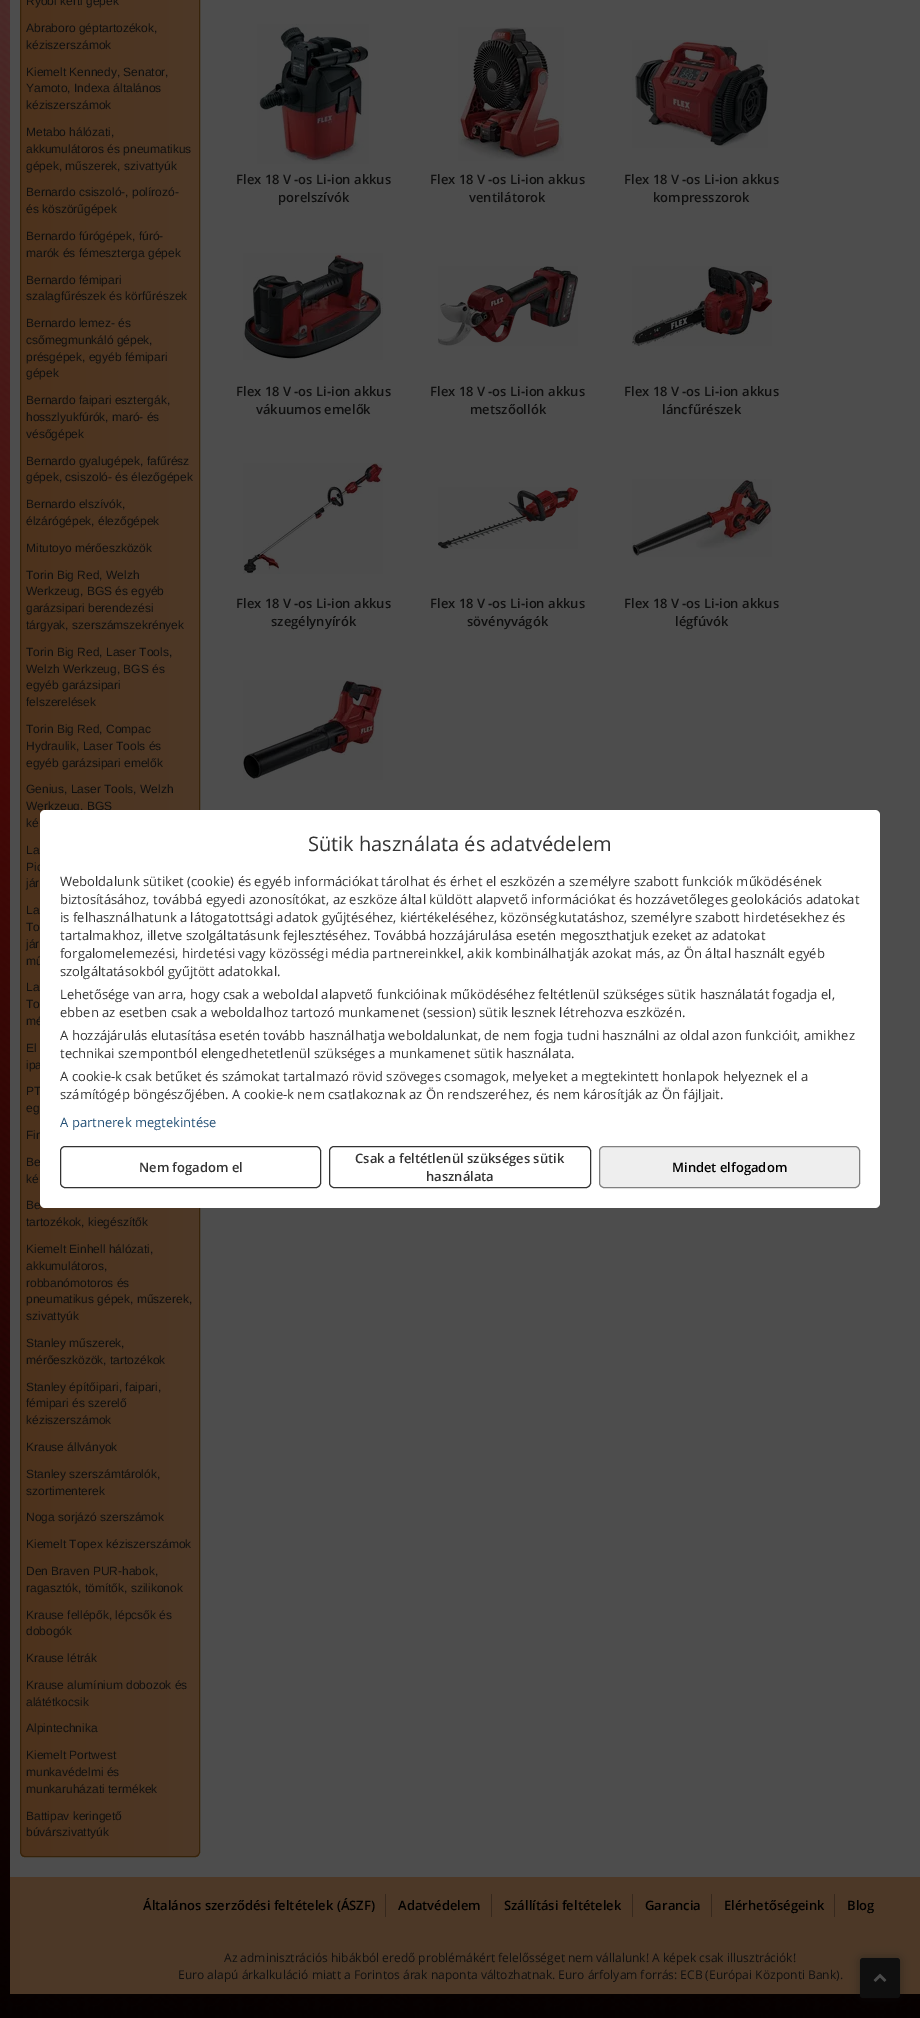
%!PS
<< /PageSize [920 2018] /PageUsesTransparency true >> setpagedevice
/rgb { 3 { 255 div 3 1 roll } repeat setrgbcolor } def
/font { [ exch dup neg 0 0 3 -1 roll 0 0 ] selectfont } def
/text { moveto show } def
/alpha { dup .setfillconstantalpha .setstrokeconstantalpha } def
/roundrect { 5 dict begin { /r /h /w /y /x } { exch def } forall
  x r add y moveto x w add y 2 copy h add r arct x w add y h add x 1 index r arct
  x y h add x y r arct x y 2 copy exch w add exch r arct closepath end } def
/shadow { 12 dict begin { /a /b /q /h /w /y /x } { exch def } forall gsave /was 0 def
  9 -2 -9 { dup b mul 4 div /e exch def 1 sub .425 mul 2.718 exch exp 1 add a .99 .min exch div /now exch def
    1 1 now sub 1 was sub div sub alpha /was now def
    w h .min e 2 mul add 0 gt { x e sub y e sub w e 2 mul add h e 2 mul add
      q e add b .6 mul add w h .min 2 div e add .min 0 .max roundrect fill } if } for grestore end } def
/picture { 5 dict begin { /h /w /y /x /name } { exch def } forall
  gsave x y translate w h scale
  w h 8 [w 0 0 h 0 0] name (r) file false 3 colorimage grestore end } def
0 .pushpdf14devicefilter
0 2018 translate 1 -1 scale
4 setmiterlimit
255 255 255 rgb
0 0 920 2018 rectfill
(img_01.rgb) 0 0 920 2018 picture
77 77 77 rgb
10 0 910 1877 rectfill
gsave
20 -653 180 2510 5 roundrect clip newpath
gsave 21 0 moveto 178 0 rlineto 0 1857 rlineto -178 0 rlineto closepath clip newpath
<< /ShadingType 2 /ColorSpace /DeviceRGB /Coords [21 602 199 602] /Extend [true true] /Function << /FunctionType 2 /Domain [0 1] /C0 [0.298 0.196 0.11] /C1 [0.298 0.22 0.153] /N 1 >> >> shfill grestore
grestore
55 35 10 rgb
20.5 -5.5 179 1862 4.5 roundrect stroke
(img_02.rgb) 257 24 112 140 picture
(img_03.rgb) 458 27 106 134 picture
(img_04.rgb) 632 40 136 108 picture
(img_05.rgb) 243 253 140 107 picture
(img_06.rgb) 438 266 140 80 picture
(img_07.rgb) 632 266 140 80 picture
(img_08.rgb) 243 463 140 111 picture
(img_09.rgb) 438 487 140 62 picture
(img_10.rgb) 632 479 140 78 picture
(img_11.rgb) 243 680 140 100 picture
76 56 39 rgb
10 1877 910 117 rectfill
53 39 28 rgb
385 1894 1 23 rectfill
491 1894 1 23 rectfill
632 1894 1 23 rectfill
711 1894 1 23 rectfill
834 1894 1 23 rectfill
15 15 15 rgb
860 1958 40 40 3 5 0.4 shadow
860 1958 40 40 3 roundrect fill
(img_12.rgb) 873 1973 14 9 picture
/LiberationSans-Regular 12 font
(Ryobi kerti gépek) 26 5 text
(Abraboro géptartozékok,) 26 32 text
(kéziszerszámok) 26 49 text
(Kiemelt Kennedy, Senator,) 26 76 text
(Yamoto, Indexa általános) 26 92 text
(kéziszerszámok) 26 109 text
(Metabo hálózati,) 26 136 text
(akkumulátoros és pneumatikus) 26 153 text
(gépek, műszerek, szivattyúk) 26 170 text
(Bernardo csiszoló-, polírozó-) 26 196 text
(és köszörűgépek) 26 213 text
(Bernardo fúrógépek, fúró-) 26 240 text
(marók és fémeszterga gépek) 26 257 text
(Bernardo fémipari) 26 284 text
(szalagfűrészek és körfűrészek) 26 300 text
(Bernardo lemez- és) 26 327 text
(csőmegmunkáló gépek,) 26 344 text
(présgépek, egyéb fémipari) 26 361 text
(gépek) 26 377 text
(Bernardo faipari esztergák,) 26 404 text
(hosszlyukfúrók, maró- és) 26 421 text
(vésőgépek) 26 438 text
(Bernardo gyalugépek, fafűrész) 26 465 text
(gépek, csiszoló- és élezőgépek) 26 481 text
(Bernardo elszívók,) 26 508 text
(élzárógépek, élezőgépek) 26 525 text
(Mitutoyo mérőeszközök) 26 552 text
(Torin Big Red, Welzh) 26 579 text
(Werkzeug, BGS és egyéb) 26 595 text
(garázsipari berendezési) 26 612 text
(tárgyak, szerszámszekrények) 26 629 text
(Torin Big Red, Laser Tools,) 26 656 text
(Welzh Werkzeug, BGS és) 26 673 text
(egyéb garázsipari) 26 689 text
(felszerelések) 26 706 text
(Torin Big Red, Compac) 26 733 text
(Hydraulik, Laser Tools és) 26 750 text
(egyéb garázsipari emelők) 26 767 text
(Genius, Laser Tools, Welzh) 26 793 text
(Werkzeug, BGS) 26 810 text
(ké) 26 827 text
(La) 26 854 text
(Pic) 26 871 text
(jár) 26 887 text
(La) 26 914 text
(To) 26 931 text
(jár) 26 948 text
(mű) 26 965 text
(La) 26 991 text
(To) 26 1008 text
(mé) 26 1025 text
(El) 26 1052 text
(ipa) 26 1069 text
(PT) 26 1095 text
(eg) 26 1112 text
(Fin) 26 1139 text
(Be) 26 1166 text
(ké) 26 1183 text
(Be) 26 1209 text
(tartozékok, kiegészítők) 26 1226 text
(Kiemelt Einhell hálózati,) 26 1253 text
(akkumulátoros,) 26 1270 text
(robbanómotoros és) 26 1287 text
(pneumatikus gépek, műszerek,) 26 1303 text
(szivattyúk) 26 1320 text
(Stanley műszerek,) 26 1347 text
(mérőeszközök, tartozékok) 26 1364 text
(Stanley építőipari, faipari,) 26 1391 text
(fémipari és szerelő) 26 1407 text
(kéziszerszámok) 26 1424 text
(Krause állványok) 26 1451 text
(Stanley szerszámtárolók,) 26 1478 text
(szortimenterek) 26 1495 text
(Noga sorjázó szerszámok) 26 1521 text
(Kiemelt Topex kéziszerszámok) 26 1548 text
(Den Braven PUR-habok,) 26 1575 text
(ragasztók, tömítők, szilikonok) 26 1592 text
(Krause fellépők, lépcsők és) 26 1619 text
(dobogók) 26 1635 text
(Krause létrák) 26 1662 text
(Krause alumínium dobozok és) 26 1689 text
(alátétkocsik) 26 1706 text
(Alpintechnika) 26 1732 text
(Kiemelt Portwest) 26 1759 text
(munkavédelmi és) 26 1776 text
(munkaruházati termékek) 26 1793 text
(Battipav keringető) 26 1820 text
(búvárszivattyúk) 26 1836 text
/OpenSans-SemiBold 13 font
(Flex 18 V -os Li-ion akkus) 236 184 text
(porelszívók) 278 202 text
(Flex 18 V -os Li-ion akkus) 430 184 text
(ventilátorok) 469 202 text
(Flex 18 V -os Li-ion akkus) 624 184 text
(kompresszorok) 653 202 text
(Flex 18 V -os Li-ion akkus) 236 396 text
(vákuumos emelők) 256 414 text
(Flex 18 V -os Li-ion akkus) 430 396 text
(metszőollók) 470 414 text
(Flex 18 V -os Li-ion akkus) 624 396 text
(láncfűrészek) 662 414 text
(Flex 18 V -os Li-ion akkus) 236 608 text
(szegélynyírók) 271 626 text
(Flex 18 V -os Li-ion akkus) 430 608 text
(sövényvágók) 467 626 text
(Flex 18 V -os Li-ion akkus) 624 608 text
(légfúvók) 675 626 text
0 0 0 rgb
(Általános szerződési feltételek \(ÁSZF\)) 143 1910 text
(Adatvédelem) 398 1910 text
(Szállítási feltételek) 504 1910 text
(Garancia) 645 1910 text
(Elérhetőségeink) 724 1910 text
(Blog) 847 1910 text
/OpenSans-Regular 12 font
15 15 15 rgb
(Az adminisztrációs hibákból eredő problémákért felelősséget nem vállalunk! A képek csak illusztrációk!) 224 1962 text
(Euro alapú árkalkuláció miatt a Forintos árak naponta változhatnak. Euro árfolyam forrás: ECB \(Európai Központi Bank\).) 178 1979 text
255 255 255 rgb
40 810 840 398 5 roundrect fill
/OpenSans-Regular 20 font
51 51 51 rgb
(Sütik használata és adatvédelem) 308 851 text
/OpenSans-Regular 13 font
(Weboldalunk sütiket \(cookie\) és egyéb információkat tárolhat és érhet el eszközén a személyre szabott funkciók működésének) 60 886 text
(biztosításához, továbbá egyedi azonosítókat, az eszköze által küldött alapvető információkat és hozzávetőleges geolokációs adatokat) 60 904 text
(is felhasználhatunk a látogatottsági adatok gyűjtéséhez, kiértékeléséhez, közönségkutatáshoz, személyre szabott hirdetésekhez és) 60 922 text
(tartalmakhoz, illetve szolgáltatásunk fejlesztéséhez. Továbbá hozzájárulása esetén megoszthatjuk ezeket az adatokat) 60 940 text
(forgalomelemezési, hirdetési vagy közösségi média partnereinkkel, akik kombinálhatják azokat más, az Ön által használt egyéb) 60 958 text
(szolgáltatásokból gyűjtött adatokkal.) 60 976 text
(Lehetősége van arra, hogy csak a weboldal alapvető funkcióinak működéséhez feltétlenül szükséges sütik használatát fogadja el,) 60 999 text
(ebben az esetben csak a weboldalhoz tartozó munkamenet \(session\) sütik lesznek létrehozva eszközén.) 60 1017 text
(A hozzájárulás elutasítása esetén tovább használhatja weboldalunkat, de nem fogja tudni használni az oldal azon funkcióit, amikhez) 60 1040 text
(technikai szempontból elengedhetetlenül szükséges a munkamenet sütik használata.) 60 1058 text
(A cookie-k csak betűket és számokat tartalmazó rövid szöveges csomagok, melyeket a megtekintett honlapok helyeznek el a) 60 1081 text
(számítógép böngészőjében. A cookie-k nem csatlakoznak az Ön rendszeréhez, és nem károsítják az Ön fájljait.) 60 1099 text
36 80 118 rgb
(A partnerek megtekintése) 60 1127 text
51 51 51 rgb
60.5 1146.5 260 41 4.5 roundrect stroke
/OpenSans-SemiBold 13 font
(Nem fogadom el) 139 1172 text
329.5 1146.5 261 41 4.5 roundrect stroke
(Csak a feltétlenül szükséges sütik) 355 1163 text
(használata) 426 1181 text
238 238 238 rgb
599.5 1146.5 260 41 4.5 roundrect gsave fill grestore
128 128 128 rgb
stroke
0 0 0 rgb
(Mindet elfogadom) 672 1172 text
.poppdf14devicefilter showpage
